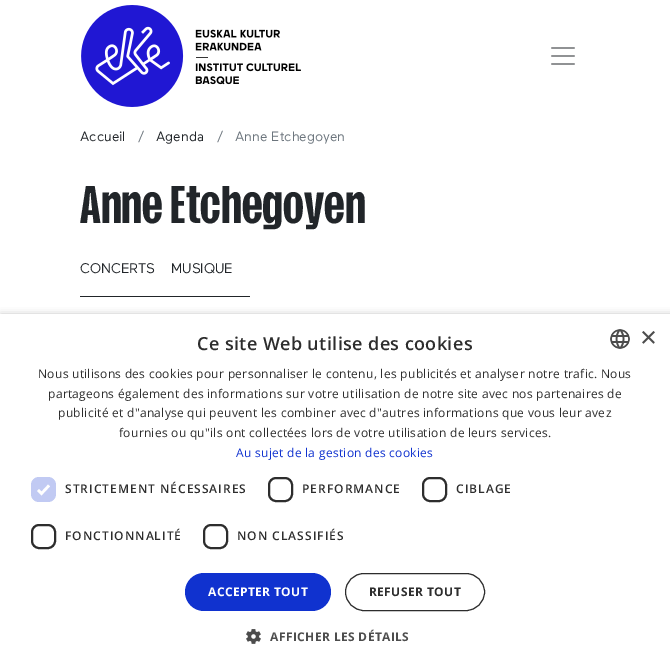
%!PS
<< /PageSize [670 670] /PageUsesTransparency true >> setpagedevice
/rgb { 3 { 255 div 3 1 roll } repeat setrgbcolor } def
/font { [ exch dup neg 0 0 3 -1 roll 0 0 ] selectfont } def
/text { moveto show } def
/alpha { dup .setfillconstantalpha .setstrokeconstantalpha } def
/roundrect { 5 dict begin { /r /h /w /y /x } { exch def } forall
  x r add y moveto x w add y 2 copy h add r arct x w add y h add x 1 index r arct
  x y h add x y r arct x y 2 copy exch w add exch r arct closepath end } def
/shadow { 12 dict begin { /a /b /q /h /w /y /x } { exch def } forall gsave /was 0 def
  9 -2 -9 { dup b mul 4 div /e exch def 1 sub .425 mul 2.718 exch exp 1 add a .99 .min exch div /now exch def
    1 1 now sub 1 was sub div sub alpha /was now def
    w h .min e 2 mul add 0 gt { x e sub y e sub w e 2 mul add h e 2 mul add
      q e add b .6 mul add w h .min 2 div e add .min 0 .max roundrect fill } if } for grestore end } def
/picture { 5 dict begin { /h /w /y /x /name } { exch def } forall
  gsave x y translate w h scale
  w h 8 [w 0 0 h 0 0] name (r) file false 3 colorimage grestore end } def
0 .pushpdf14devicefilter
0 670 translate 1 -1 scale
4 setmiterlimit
255 255 255 rgb
0 0 670 670 rectfill
(img_01.rgb) 81 5 220 102 picture
(img_02.rgb) 551 47 24 18 picture
33 37 41 rgb
80 296 170 1 rectfill
0 0 0 rgb
1 316 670 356 0 4 0.35 shadow
255 255 255 rgb
0 314 670 356 rectfill
(img_03.rgb) 610 329 20 20 picture
193 202 243 rgb
31 477 25 25 8 roundrect fill
255 255 255 rgb
2.6 setlinewidth
38 490 moveto 3.5 3.5 rlineto 7.5 -8 rlineto stroke
45 45 45 rgb
2 setlinewidth
269 478 23 23 7 roundrect stroke
423 478 23 23 7 roundrect stroke
32 525 23 23 7 roundrect stroke
204 525 23 23 7 roundrect stroke
16 50 207 rgb
185 573 146 38 19 roundrect fill
45 45 45 rgb
1 setlinewidth
345.5 573.5 139 37 18.5 roundrect stroke
(img_04.rgb) 246 629 15 15 picture
/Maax-Regular 13.5 font
33 37 41 rgb
(Accueil) 80 141 text
108 117 125 rgb
(/) 138 141 text
33 37 41 rgb
(Agenda) 156 141 text
108 117 125 rgb
(/) 217 141 text
(Anne Etchegoyen) 235 141 text
/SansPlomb-SemiBold 52.75 font
33 37 41 rgb
(Anne Etchegoyen) 80 223 text
/Maax-Regular 14 font
(CONCERTS) 80 273 text
(MUSIQUE) 171 273 text
/OpenSans-SemiBold 18 font
45 45 45 rgb
197 350 moveto 0.4 0 (Ce site Web utilise des cookies) ashow
/LiberationSans-Regular 29 font
77 77 77 rgb
(×) 640 347 text
/OpenSans-Regular 12 font
45 45 45 rgb
38 378 moveto 0.3 0 (Nous utilisons des cookies pour personnaliser le contenu, les publicités et analyser notre trafic. Nous) ashow
48 398 moveto 0.3 0 (partageons également des informations sur votre utilisation de notre site avec nos partenaires de) ashow
58 417 moveto 0.3 0 (publicité et d"analyse qui peuvent les combiner avec d"autres informations que vous leur avez) ashow
119 437 moveto 0.3 0 (fournies ou qu"ils ont collectées lors de votre utilisation de leurs services.) ashow
16 50 207 rgb
236 457 moveto 0.3 0 (Au sujet de la gestion des cookies) ashow
/OpenSans-SemiBold 12 font
45 45 45 rgb
65 493 moveto 1 0 (STRICTEMENT NÉCESSAIRES) ashow
302 493 moveto 1 0 (PERFORMANCE) ashow
456 493 moveto 1 0 (CIBLAGE) ashow
65 540 moveto 1 0 (FONCTIONNALITÉ) ashow
237 540 moveto 1 0 (NON CLASSIFIÉS) ashow
/OpenSans-Bold 12 font
255 255 255 rgb
208 596 moveto 0.4 0 (ACCEPTER TOUT) ashow
45 45 45 rgb
369 596 moveto 0.4 0 (REFUSER TOUT) ashow
77 77 77 rgb
270 641 moveto 0.4 0 (AFFICHER LES DÉTAILS) ashow
.poppdf14devicefilter showpage
